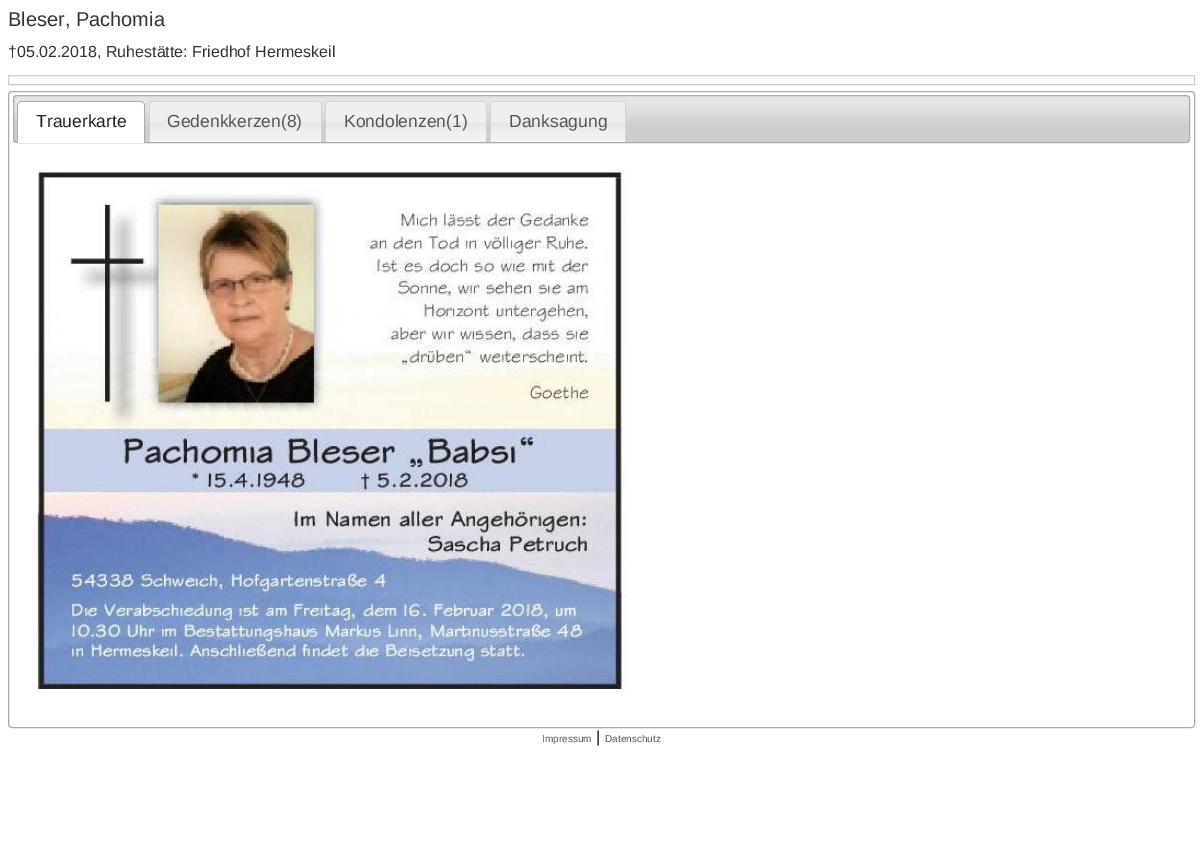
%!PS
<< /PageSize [1203 856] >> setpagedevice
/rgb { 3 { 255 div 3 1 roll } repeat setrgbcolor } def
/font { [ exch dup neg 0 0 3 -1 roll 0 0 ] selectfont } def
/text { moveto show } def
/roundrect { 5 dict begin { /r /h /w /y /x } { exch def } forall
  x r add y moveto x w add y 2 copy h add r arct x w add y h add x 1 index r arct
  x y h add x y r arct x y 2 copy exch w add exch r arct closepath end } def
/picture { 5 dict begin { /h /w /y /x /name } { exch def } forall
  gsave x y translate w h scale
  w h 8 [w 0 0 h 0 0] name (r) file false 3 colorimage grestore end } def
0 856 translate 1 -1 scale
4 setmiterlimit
255 255 255 rgb
0 0 1203 856 rectfill
204 204 204 rgb
8.5 75.5 1186 9 rectstroke
170 170 170 rgb
8.5 91.5 1186 636 3.5 roundrect stroke
(img_01.rgb) 13 95 1177 48 picture
13.5 95.5 1176 47 3.5 roundrect stroke
255 255 255 rgb
17 101 128 42 rectfill
170 170 170 rgb
21 101 moveto 120 0 rlineto 2 0 4 2 4 4 rcurveto 0 38 rlineto -128 0 rlineto 0 -38 rlineto 0 -2 2 -4 4 -4 rcurveto closepath 21 102 moveto 120 0 rlineto 2 0 3 1 3 3 rcurveto 0 38 rlineto -126 0 rlineto 0 -38 rlineto 0 -2 1 -3 3 -3 rcurveto closepath eofill
(img_02.rgb) 149 101 173 41 picture
211 211 211 rgb
153 101 moveto 165 0 rlineto 2 0 4 2 4 4 rcurveto 0 37 rlineto -173 0 rlineto 0 -37 rlineto 0 -2 2 -4 4 -4 rcurveto closepath 153 102 moveto 165 0 rlineto 2 0 3 1 3 3 rcurveto 0 37 rlineto -171 0 rlineto 0 -37 rlineto 0 -2 1 -3 3 -3 rcurveto closepath eofill
(img_03.rgb) 325 101 162 41 picture
329 101 moveto 154 0 rlineto 2 0 4 2 4 4 rcurveto 0 37 rlineto -162 0 rlineto 0 -37 rlineto 0 -2 2 -4 4 -4 rcurveto closepath 329 102 moveto 154 0 rlineto 2 0 3 1 3 3 rcurveto 0 37 rlineto -160 0 rlineto 0 -37 rlineto 0 -2 1 -3 3 -3 rcurveto closepath eofill
(img_04.rgb) 490 101 136 41 picture
494 101 moveto 128 0 rlineto 2 0 4 2 4 4 rcurveto 0 37 rlineto -136 0 rlineto 0 -37 rlineto 0 -2 2 -4 4 -4 rcurveto closepath 494 102 moveto 128 0 rlineto 2 0 3 1 3 3 rcurveto 0 37 rlineto -134 0 rlineto 0 -37 rlineto 0 -2 1 -3 3 -3 rcurveto closepath eofill
(img_05.rgb) 37 169 595 526 picture
/LiberationSans-Regular 20 font
51 51 51 rgb
(Bleser, Pachomia) 8 26 text
/LiberationSans-Regular 16 font
(†05.02.2018, Ruhestätte: Friedhof Hermeskeil) 8 57 text
/LiberationSans-Regular 17.5 font
33 33 33 rgb
(Trauerkarte) 36 127 text
85 85 85 rgb
(Gedenkkerzen\(8\)) 167 127 text
(Kondolenzen\(1\)) 344 127 text
(Danksagung) 509 127 text
/LiberationSans-Regular 10 font
(Impressum) 542 742 text
/LiberationSans-Regular 16 font
0 0 0 rgb
(|) 596 742 text
/LiberationSans-Regular 10 font
85 85 85 rgb
(Datenschutz) 605 742 text
showpage
